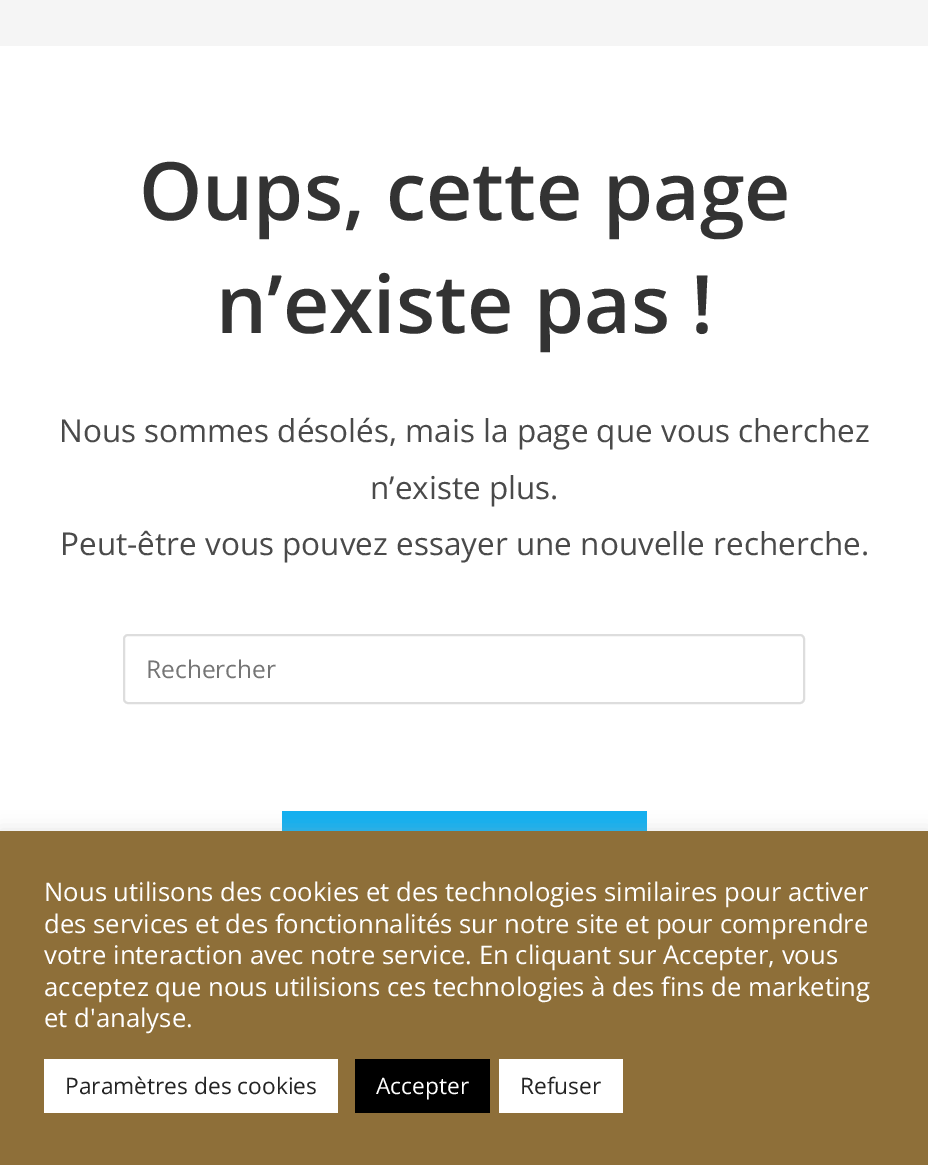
%!PS
<< /PageSize [928 1165] /PageUsesTransparency true >> setpagedevice
/rgb { 3 { 255 div 3 1 roll } repeat setrgbcolor } def
/font { [ exch dup neg 0 0 3 -1 roll 0 0 ] selectfont } def
/text { moveto show } def
/alpha { dup .setfillconstantalpha .setstrokeconstantalpha } def
/roundrect { 5 dict begin { /r /h /w /y /x } { exch def } forall
  x r add y moveto x w add y 2 copy h add r arct x w add y h add x 1 index r arct
  x y h add x y r arct x y 2 copy exch w add exch r arct closepath end } def
/shadow { 12 dict begin { /a /b /q /h /w /y /x } { exch def } forall gsave /was 0 def
  9 -2 -9 { dup b mul 4 div /e exch def 1 sub .425 mul 2.718 exch exp 1 add a .99 .min exch div /now exch def
    1 1 now sub 1 was sub div sub alpha /was now def
    w h .min e 2 mul add 0 gt { x e sub y e sub w e 2 mul add h e 2 mul add
      q e add b .6 mul add w h .min 2 div e add .min 0 .max roundrect fill } if } for grestore end } def
0 .pushpdf14devicefilter
0 1165 translate 1 -1 scale
4 setmiterlimit
255 255 255 rgb
0 0 928 1165 rectfill
245 245 245 rgb
0 0 928 46 rectfill
221 221 221 rgb
2 setlinewidth
124 635 680 68 4 roundrect stroke
19 175 240 rgb
282 811 365 20 rectfill
172 171 171 rgb
0 830 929 334 0 9 0.3 shadow
142 111 57 rgb
0 831 928 334 rectfill
255 255 255 rgb
44 1059 294 54 rectfill
0 0 0 rgb
355 1059 135 54 rectfill
255 255 255 rgb
499 1059 124 54 rectfill
/OpenSans-SemiBold 80.5 font
51 51 51 rgb
(Oups, cette page) 139 220 text
(n’existe pas !) 216 333 text
/OpenSans-Regular 31.5 font
74 74 74 rgb
(Nous sommes désolés, mais la page que vous cherchez) 59 442 text
(n’existe plus.) 370 499 text
(Peut-être vous pouvez essayer une nouvelle recherche.) 60 555 text
/OpenSans-Regular 24.5 font
117 117 117 rgb
(Rechercher) 146 678 text
/OpenSans-Regular 25.7 font
255 255 255 rgb
(Nous utilisons des cookies et des technologies similaires pour activer) 44 901 text
(des services et des fonctionnalités sur notre site et pour comprendre) 44 933 text
(votre interaction avec notre service. En cliquant sur Accepter, vous) 44 964 text
(acceptez que nous utilisions ces technologies à des fins de marketing) 44 996 text
(et d'analyse.) 44 1027 text
/OpenSans-Regular 22.75 font
35 35 35 rgb
(Paramètres des cookies) 65 1094 text
255 255 255 rgb
(Accepter) 376 1094 text
35 35 35 rgb
(Refuser) 520 1094 text
.poppdf14devicefilter showpage
